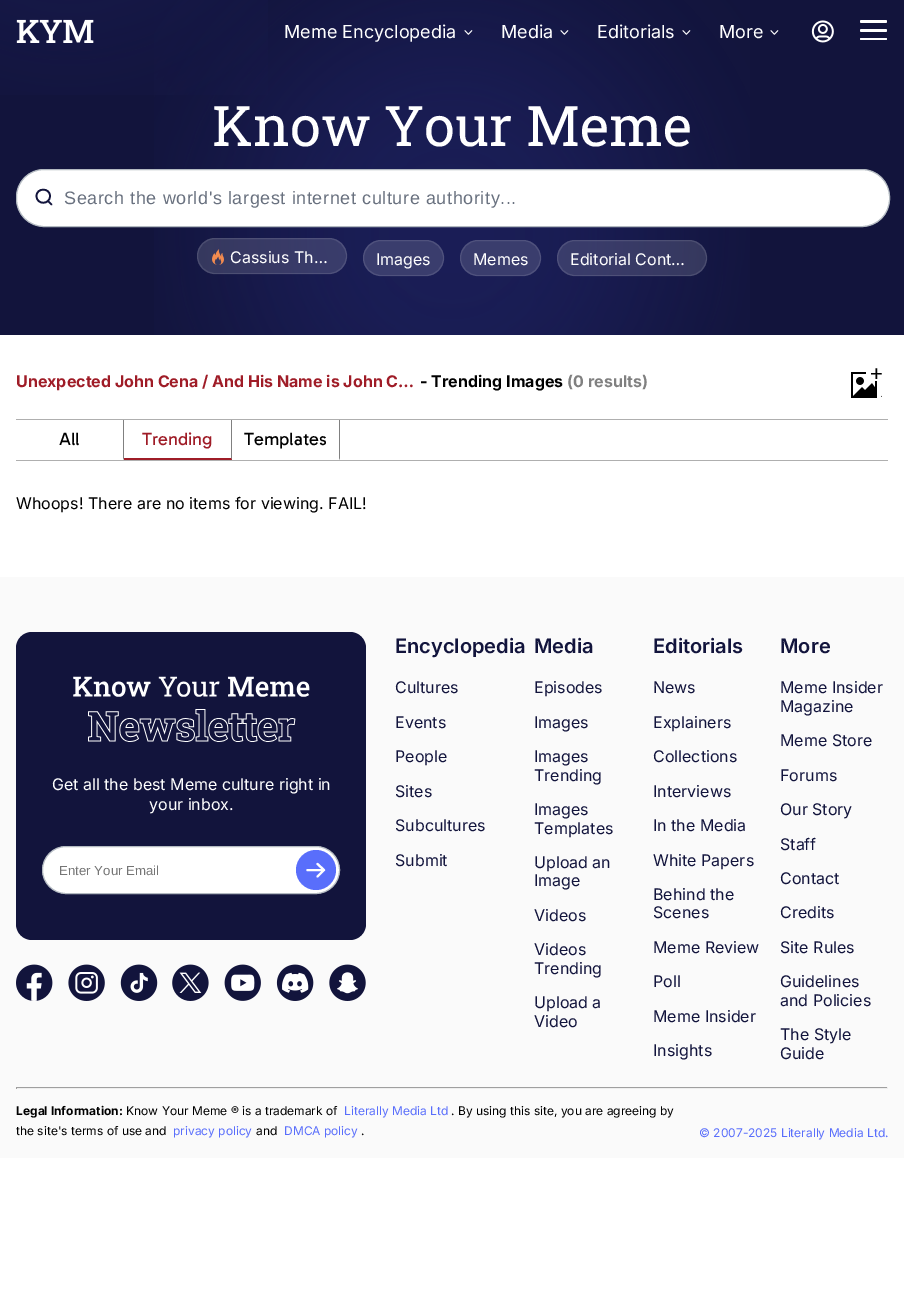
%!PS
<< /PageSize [904 1309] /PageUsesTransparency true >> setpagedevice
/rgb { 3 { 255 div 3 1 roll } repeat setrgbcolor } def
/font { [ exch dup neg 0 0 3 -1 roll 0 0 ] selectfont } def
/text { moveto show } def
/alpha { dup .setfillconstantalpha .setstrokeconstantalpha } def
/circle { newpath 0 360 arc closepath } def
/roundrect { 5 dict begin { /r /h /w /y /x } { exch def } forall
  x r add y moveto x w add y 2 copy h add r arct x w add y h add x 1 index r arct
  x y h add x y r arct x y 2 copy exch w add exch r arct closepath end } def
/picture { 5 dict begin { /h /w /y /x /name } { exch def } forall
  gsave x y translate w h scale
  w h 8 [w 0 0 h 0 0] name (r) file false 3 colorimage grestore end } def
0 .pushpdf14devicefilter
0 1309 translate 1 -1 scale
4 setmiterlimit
255 255 255 rgb
0 0 904 1309 rectfill
18 20 60 rgb
0 0 904 335 rectfill
(img_07.rgb) 0 0 268 95 picture
(img_01.rgb) 16 19 78 24 picture
(img_08.rgb) 154 0 596 335 picture
(img_02.rgb) 464 30 9 5 picture
(img_03.rgb) 560 30 9 5 picture
(img_04.rgb) 682 30 9 5 picture
(img_05.rgb) 770 30 9 5 picture
(img_06.rgb) 811 20 23 23 picture
255 255 255 rgb
860 20 27 3 1.5 roundrect fill
860 29 27 3 1.5 roundrect fill
860 38 27 2 1 roundrect fill
16.5 169.5 873 57 27.5 roundrect gsave fill grestore
179 186 193 rgb
stroke
18 20 60 rgb
1.7 setlinewidth
1 setlinecap
1 setlinejoin
51.5 204.5 moveto -3.5 -3.5 rlineto 50 196 moveto 0 9 -13.5 9 -13.5 0 rcurveto 0 -8.5 13.5 -8.5 13.5 0 rcurveto closepath stroke
0.14 alpha
255 255 255 rgb
197 238 150 36 18 roundrect fill
0.11 alpha
1 setlinewidth
0 setlinecap
0 setlinejoin
197.5 238.5 149 35 17.5 roundrect stroke
1 alpha
(img_09.rgb) 212 249 12 16 picture
58 61 109 rgb
363 240 81 36 18 roundrect fill
0.11 alpha
255 255 255 rgb
363.5 240.5 80 35 17.5 roundrect stroke
1 alpha
58 61 109 rgb
460 240 81 36 18 roundrect fill
0.11 alpha
255 255 255 rgb
460.5 240.5 80 35 17.5 roundrect stroke
0.14 alpha
557 240 150 36 18 roundrect fill
0.11 alpha
557.5 240.5 149 35 17.5 roundrect stroke
1 alpha
(img_10.rgb) 851 372 31 26 picture
175 175 175 rgb
16 419 872 1 rectfill
16 460 872 1 rectfill
128 128 128 rgb
124 420 moveto 0 40 rlineto -1 -2 rlineto 0 -38 rlineto closepath fill
232 420 moveto 0 40 rlineto -1 -2 rlineto 0 -38 rlineto closepath fill
159 28 39 rgb
232 460 moveto -108 0 rlineto 0 -2 rlineto 107 0 rlineto closepath fill
128 128 128 rgb
340 420 moveto 0 40 rlineto -1 -2 rlineto 0 -38 rlineto closepath fill
250 250 250 rgb
0 577 904 581 rectfill
18 20 60 rgb
16 632 350 308 16 roundrect fill
(img_11.rgb) 73 676 237 66 picture
255 255 255 rgb
42.5 846.5 297 47 23.5 roundrect gsave fill grestore
179 186 193 rgb
stroke
89 110 251 rgb
316 870 20 circle fill
255 255 255 rgb
2.1 setlinewidth
1 setlinecap
1 setlinejoin
307.5 870 moveto 16.5 0 rlineto 324 870 moveto -6.5 -6 rlineto 324 870 moveto -6.5 6.5 rlineto stroke
(img_12.rgb) 16 964 37 37 picture
(img_13.rgb) 68 964 37 37 picture
(img_14.rgb) 120 964 38 37 picture
(img_15.rgb) 172 964 37 37 picture
(img_16.rgb) 224 964 37 37 picture
(img_17.rgb) 276 964 38 37 picture
(img_18.rgb) 329 964 37 37 picture
159 159 159 rgb
16 1087 872 1 rectfill
238 238 238 rgb
887 1087 1 2 rectfill
16 1088 872 1 rectfill
159 159 159 rgb
16 1087 1 2 rectfill
/Inter-Regular 18 font
255 255 255 rgb
(Meme Encyclopedia) 284 38 text
(Media) 501 38 text
(Editorials) 597 38 text
(More) 719 38 text
/RobotoSlab-Regular 56 font
(Know Your Meme) 212 146 text
/LiberationSans-Regular 18 font
105 113 127 rgb
64 204 moveto 0.6 0 (Search the world's largest internet culture authority...) ashow
/Inter-Regular 16 font
255 255 255 rgb
(Cassius Th…) 230 263 text
(Images) 376 265 text
(Memes) 473 265 text
(Editorial Cont…) 570 265 text
/Inter-Bold 16 font
159 28 39 rgb
(Unexpected John Cena / And His Name is John C…) 16 387 text
0 0 0 rgb
(- Trending Images) 420 387 text
128 128 128 rgb
(\(0 results\)) 567 387 text
/LiberationSans-Regular 22 font
0 0 0 rgb
(+) 870 381 text
/Gabarito-Regular 18 font
(All) 59 445 text
159 28 39 rgb
(Trending) 142 445 text
0 0 0 rgb
(Templates) 244 445 text
/Inter-Regular 16 font
(Whoops! There are no items for viewing. FAIL!) 16 509 text
255 255 255 rgb
(Get all the best Meme culture right in) 52 790 text
(your inbox.) 149 810 text
/LiberationSans-Regular 13.25 font
117 117 117 rgb
(Enter Your Email) 59 875 text
/Inter-SemiBold 20 font
18 20 60 rgb
(Encyclopedia) 395 653 text
(Media) 534 653 text
(Editorials) 653 653 text
(More) 780 653 text
/Inter-Regular 16 font
(Cultures) 395 693 text
(Events) 395 728 text
(People) 395 762 text
(Sites) 395 797 text
(Subcultures) 395 831 text
(Submit) 395 866 text
(Episodes) 534 693 text
(Images) 534 728 text
(Images) 534 762 text
(Trending) 534 781 text
(Images) 534 815 text
(Templates) 534 834 text
(Upload an) 534 868 text
(Image) 534 886 text
(Videos) 534 921 text
(Videos) 534 955 text
(Trending) 534 974 text
(Upload a) 534 1008 text
(Video) 534 1027 text
(News) 653 693 text
(Explainers) 653 728 text
(Collections) 653 762 text
(Interviews) 653 797 text
(In the Media) 653 831 text
(White Papers) 653 866 text
(Behind the) 653 900 text
(Scenes) 653 918 text
(Meme Review) 653 953 text
(Poll) 653 987 text
(Meme Insider) 653 1022 text
(Insights) 653 1056 text
(Meme Insider) 780 693 text
(Magazine) 780 712 text
(Meme Store) 780 746 text
(Forums) 780 781 text
(Our Story) 780 815 text
(Staff) 780 850 text
(Contact) 780 884 text
(Credits) 780 918 text
(Site Rules) 780 953 text
(Guidelines) 780 987 text
(and Policies) 780 1006 text
(The Style) 780 1040 text
(Guide) 780 1059 text
/Inter-Bold 12 font
0 0 0 rgb
(Legal Information:) 16 1115 text
/Inter-Regular 12 font
(Know Your Meme ® is a trademark of) 126 1115 text
89 110 251 rgb
(Literally Media Ltd) 344 1115 text
0 0 0 rgb
(. By using this site, you are agreeing by) 451 1115 text
(the site's terms of use and) 16 1135 text
89 110 251 rgb
(privacy policy) 173 1135 text
0 0 0 rgb
(and) 256 1135 text
89 110 251 rgb
(DMCA policy) 284 1135 text
0 0 0 rgb
(.) 361 1135 text
89 110 251 rgb
(© 2007-2025 Literally Media Ltd.) 699 1137 text
.poppdf14devicefilter showpage
